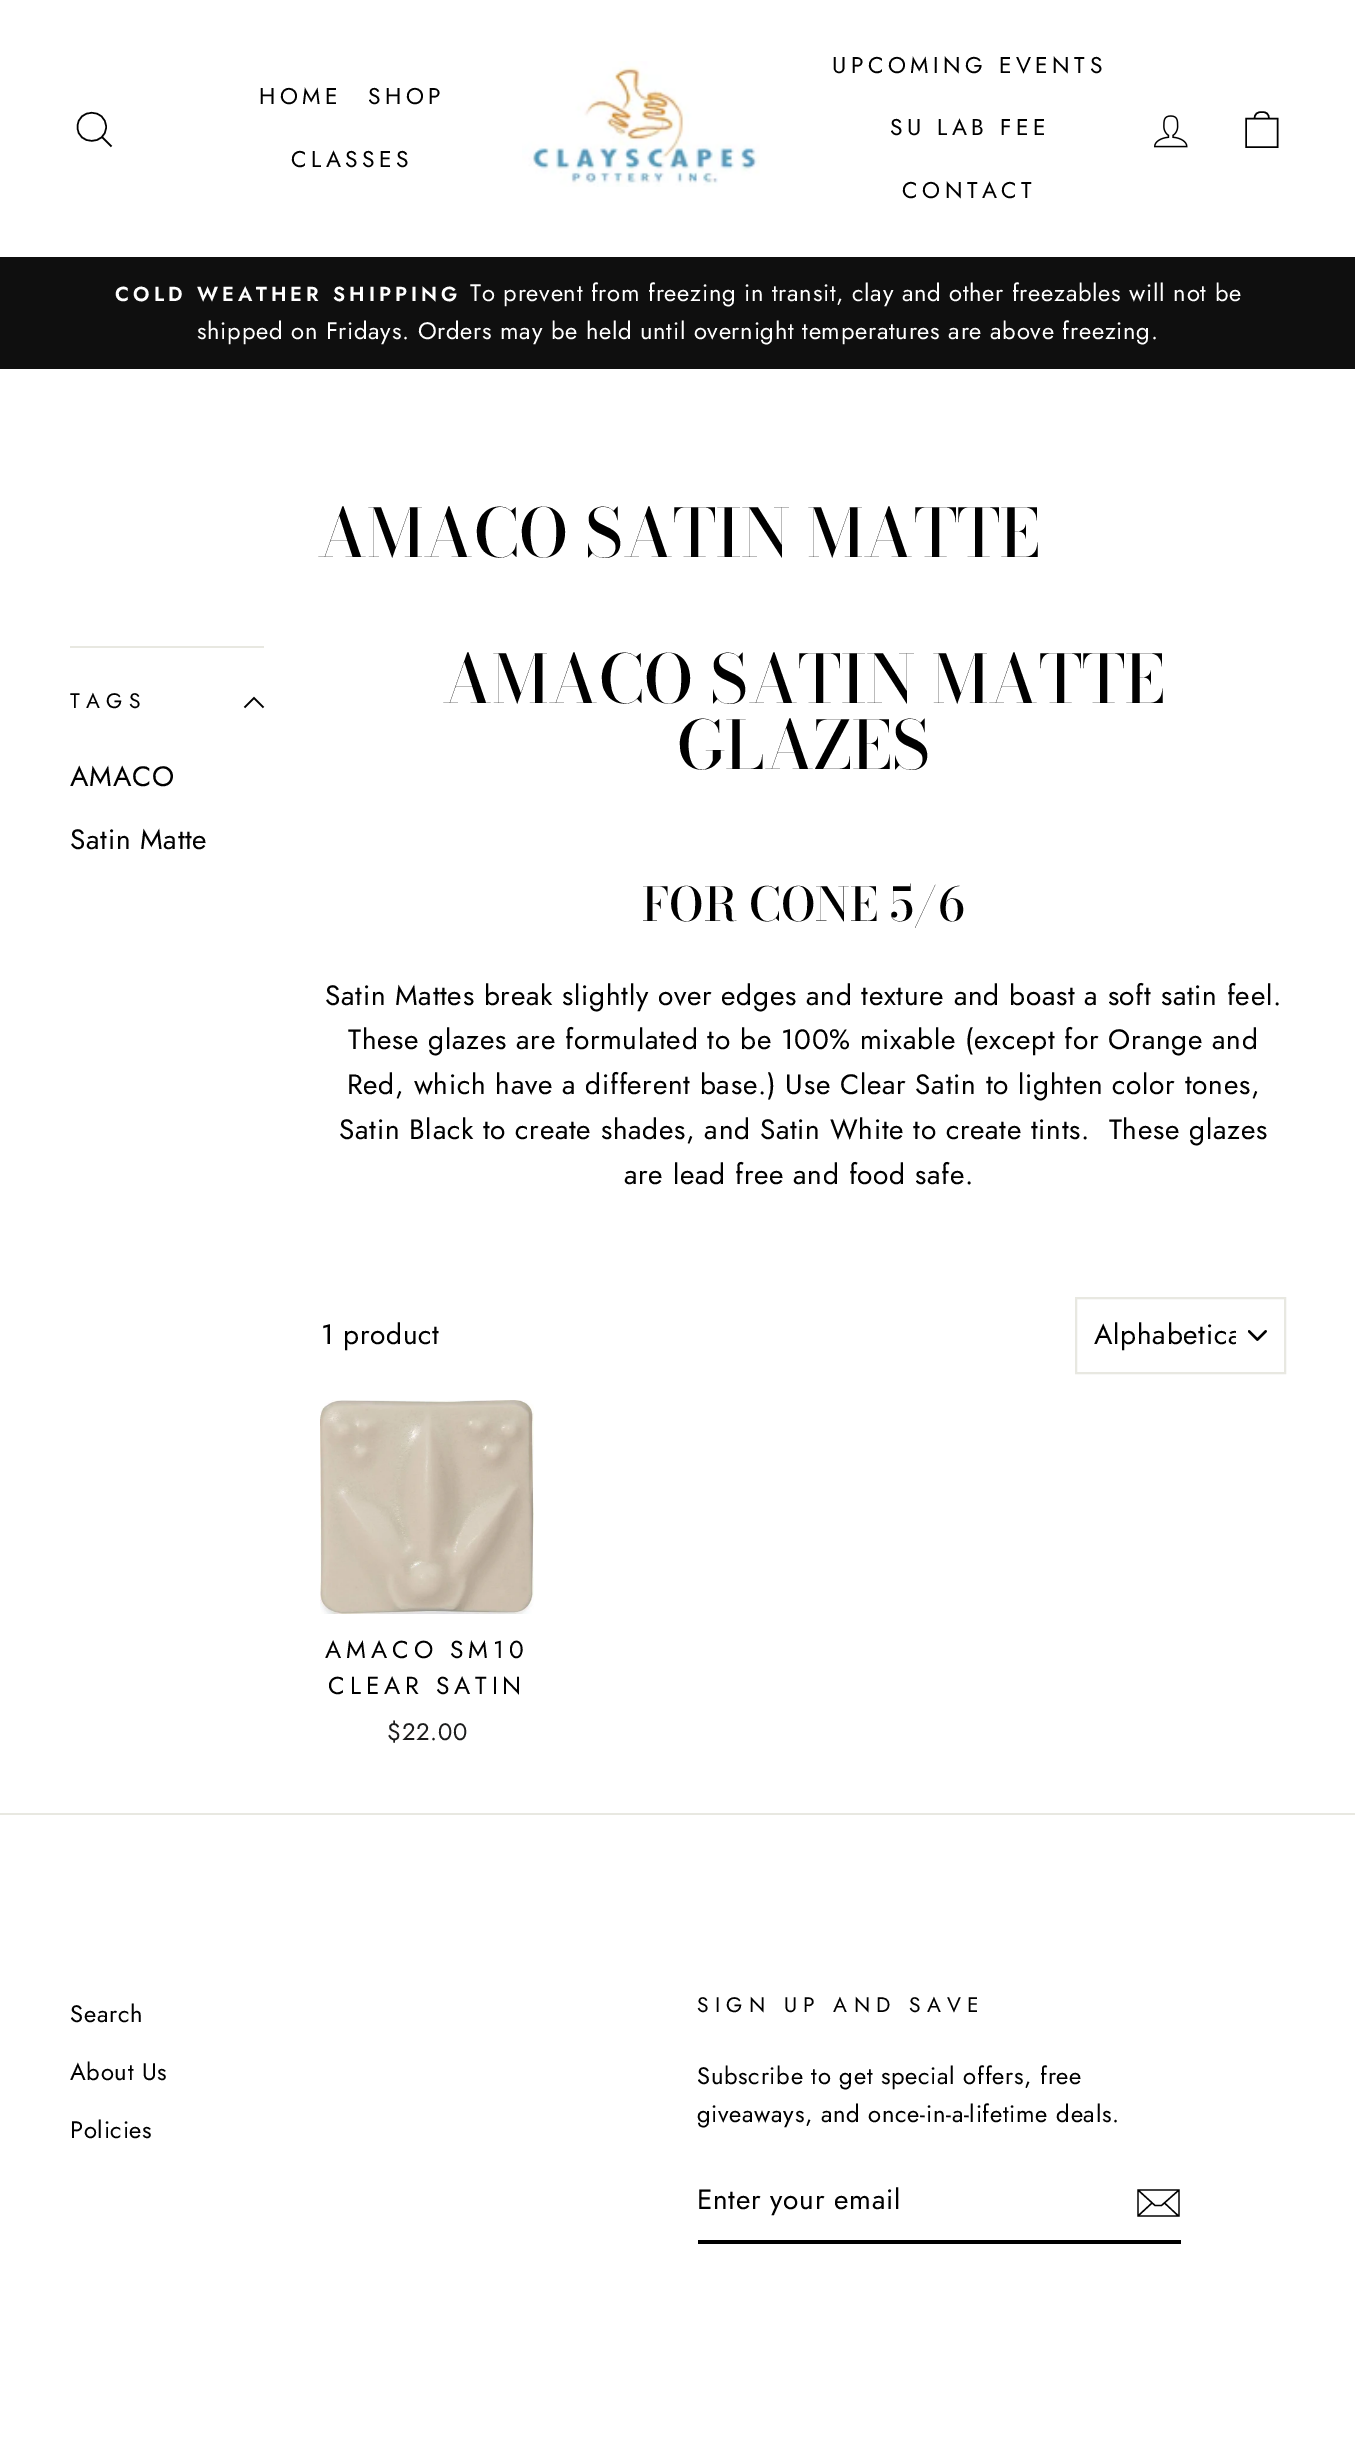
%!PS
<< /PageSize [1355 2443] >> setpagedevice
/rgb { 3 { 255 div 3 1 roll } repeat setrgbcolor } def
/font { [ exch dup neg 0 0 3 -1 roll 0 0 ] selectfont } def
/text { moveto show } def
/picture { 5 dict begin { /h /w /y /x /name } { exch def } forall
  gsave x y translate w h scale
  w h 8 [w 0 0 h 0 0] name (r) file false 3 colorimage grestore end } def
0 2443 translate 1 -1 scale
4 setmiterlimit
255 255 255 rgb
0 0 1355 2443 rectfill
0 0 0 rgb
1.5 setlinewidth
106 127 moveto 0 18.5 -28.5 18.5 -28.5 0 rcurveto 0 -19 28.5 -19 28.5 0 rcurveto closepath 111.5 146.5 moveto -9.5 -9.5 rlineto stroke
(img_01.rgb) 522 61 238 126 picture
(img_02.rgb) 1154 115 34 33 picture
1246 118.5 moveto 31.5 0 rlineto 0 28.5 rlineto -31.5 0 rlineto closepath 1254.5 119 moveto 0 -5.5 3 -7 7.5 -7 rcurveto 4 0 7 1.5 7 7 rcurveto stroke
15 15 15 rgb
0 257 1355 112 rectfill
232 232 225 rgb
70 646 194 2 rectfill
0 0 0 rgb
244.5 707.5 moveto 9.5 -9.5 rlineto 9.5 9.5 rlineto stroke
(img_03.rgb) 1248 1330 19 11 picture
232 232 225 rgb
2 setlinewidth
1076 1298 209 75 rectstroke
(img_04.rgb) 320 1400 214 214 picture
0 1813 1355 2 rectfill
0 0 0 rgb
698 2240 483 4 rectfill
1.3 setlinewidth
1179 2216 moveto -41 0 rlineto 0 -26 rlineto 41 0 rlineto closepath 1138 2190 moveto 17 15.5 rlineto 6.5 0 rlineto 17.5 -15.5 rlineto 1152 2203 moveto -13.5 12.5 rlineto 1178.5 2216 moveto -14 -13 rlineto stroke
/Jost-Regular 22.75 font
259 104 moveto 4.5 0 (HOME) ashow
368 104 moveto 4.5 0 (SHOP) ashow
291 167 moveto 4.5 0 (CLASSES) ashow
832 73 moveto 4.5 0 (UPCOMING EVENTS) ashow
890 135 moveto 4.5 0 (SU LAB FEE) ashow
902 198 moveto 4.5 0 (CONTACT) ashow
/Jost-SemiBold 20.25 font
255 255 255 rgb
115 301 moveto 4.05 0 (COLD WEATHER SHIPPING) ashow
/Jost-Regular 23.8 font
470 301 moveto 0.7 0 (To prevent from freezing in transit, clay and other freezables will not be) ashow
197 339 moveto 0.7 0 (shipped on Fridays. Orders may be held until overnight temperatures are above freezing.) ashow
/BodoniModa-Medium 66.5 font
0 0 0 rgb
(AMACO SATIN MATTE) 317 557 text
/Jost-Regular 21 font
70 708 moveto 6.25 0 (TAGS) ashow
/Jost-Regular 28 font
70 786 moveto 0.7 0 (AMACO) ashow
70 849 moveto 0.7 0 (Satin Matte) ashow
/BodoniModa-Medium 66.5 font
(AMACO SATIN MATTE) 442 703 text
(GLAZES) 677 769 text
/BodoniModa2-Medium 46.5 font
(FOR CONE 5/6) 642 921 text
/Jost-Regular 28 font
325 1005 moveto 0.7 0 (Satin Mattes break slightly over edges and texture and boast a soft satin feel.) ashow
348 1049 moveto 0.7 0 (These glazes are formulated to be 100% mixable \(except for Orange and) ashow
347 1094 moveto 0.7 0 (Red, which have a different base.\) Use Clear Satin to lighten color tones,) ashow
339 1139 moveto 0.7 0 (Satin Black to create shades, and Satin White to create tints.  These glazes) ashow
624 1184 moveto 0.7 0 (are lead free and food safe.) ashow
321 1344 moveto 0.7 0 (1 product) ashow
gsave
1094 1313 142 43 rectclip
1094 1344 moveto 0.7 0 (Alphabetica) ashow
grestore
/Jost-Regular 24.5 font
325 1658 moveto 4.9 0 (AMACO SM10) ashow
328 1694 moveto 4.9 0 (CLEAR SATIN) ashow
/Jost-Regular 23.8 font
28 29 29 rgb
387 1740 moveto 0.7 0 ($22.00) ashow
0 0 0 rgb
70 2022 moveto 0.7 0 (Search) ashow
70 2080 moveto 0.7 0 (About Us) ashow
70 2138 moveto 0.7 0 (Policies) ashow
/Jost-Regular 21 font
697 2012 moveto 6.25 0 (SIGN UP AND SAVE) ashow
/Jost-Regular 23.8 font
697 2084 moveto 0.7 0 (Subscribe to get special offers, free) ashow
697 2122 moveto 0.7 0 (giveaways, and once-in-a-lifetime deals.) ashow
/Jost-Regular 28 font
697 2209 moveto 0.7 0 (Enter your email) ashow
showpage
